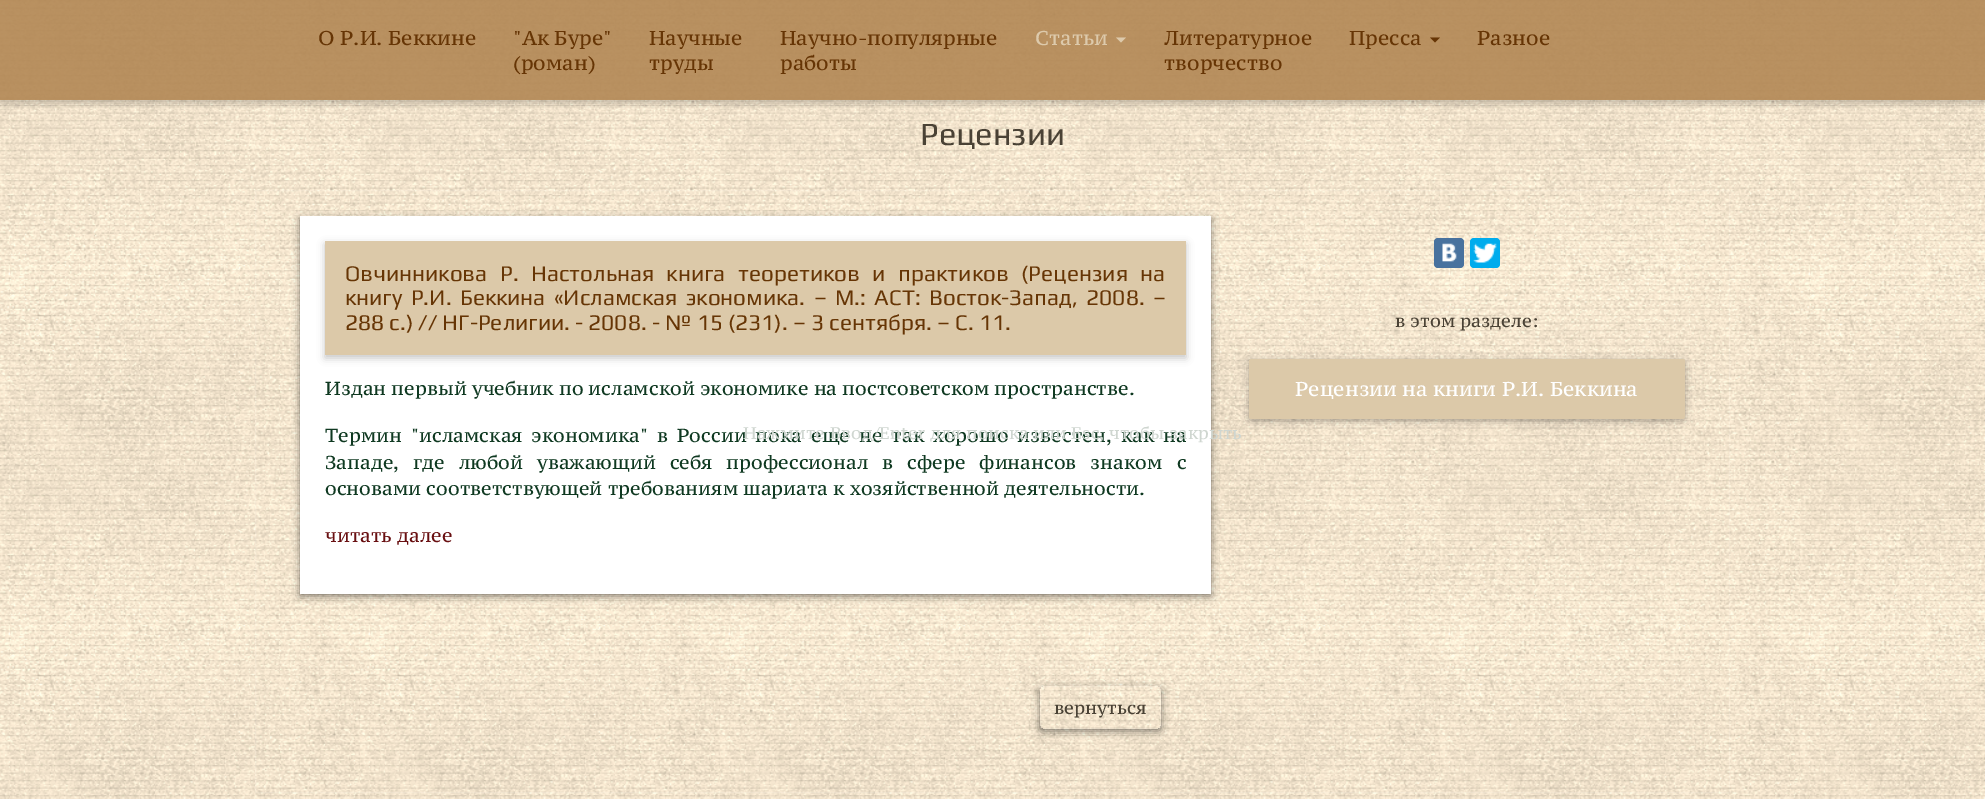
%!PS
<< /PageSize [1985 799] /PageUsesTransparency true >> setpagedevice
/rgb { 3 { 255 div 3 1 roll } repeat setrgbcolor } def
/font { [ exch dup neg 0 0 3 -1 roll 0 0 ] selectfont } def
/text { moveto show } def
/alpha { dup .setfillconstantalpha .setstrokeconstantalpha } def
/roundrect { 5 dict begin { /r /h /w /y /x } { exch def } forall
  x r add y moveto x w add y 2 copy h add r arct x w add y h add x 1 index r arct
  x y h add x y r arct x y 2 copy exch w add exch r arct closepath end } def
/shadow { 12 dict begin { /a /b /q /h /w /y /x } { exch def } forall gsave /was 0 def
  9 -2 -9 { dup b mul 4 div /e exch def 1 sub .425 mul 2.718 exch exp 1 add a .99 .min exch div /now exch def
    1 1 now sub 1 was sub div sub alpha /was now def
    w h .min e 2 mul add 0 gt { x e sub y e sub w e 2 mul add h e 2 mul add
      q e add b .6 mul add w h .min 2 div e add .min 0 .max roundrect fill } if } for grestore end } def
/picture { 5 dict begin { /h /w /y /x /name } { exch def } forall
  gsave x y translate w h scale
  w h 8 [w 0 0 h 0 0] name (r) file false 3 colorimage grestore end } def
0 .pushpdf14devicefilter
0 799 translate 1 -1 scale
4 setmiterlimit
255 255 255 rgb
0 0 1985 799 rectfill
(img_01.rgb) 0 0 1985 799 picture
gsave
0 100 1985 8 rectclip
0 0 0 rgb
0 3 1985 100 0 4 0.23 shadow
grestore
0.9 alpha
178 135 84 rgb
0 0 1985 100 rectfill
1 alpha
221 202 172 rgb
1116 37.5 moveto 10 0 rlineto -5 5 rlineto closepath fill
102 53 5 rgb
1430 37.5 moveto 10 0 rlineto -5 5 rlineto closepath fill
0.1 alpha
255 255 255 rgb
255.5 190.5 1474 602 rectstroke
1 alpha
0 0 0 rgb
300 219 911 377 0 4 0.5 shadow
255 255 255 rgb
300 216 911 378 rectfill
0 0 0 rgb
325 244 861 114 0 4 0.23 shadow
220 201 169 rgb
325 241 861 114 rectfill
gsave
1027 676 moveto 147 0 rlineto 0 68 rlineto -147 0 rlineto closepath 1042.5 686 moveto 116 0 rlineto 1.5 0 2.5 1 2.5 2.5 rcurveto 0 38 rlineto 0 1.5 -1 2.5 -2.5 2.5 rcurveto -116 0 rlineto -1.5 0 -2.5 -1 -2.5 -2.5 rcurveto 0 -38 rlineto 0 -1.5 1 -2.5 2.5 -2.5 rcurveto closepath eoclip newpath
0 0 0 rgb
1040 689 121 42 2.5 4 0.5 shadow
grestore
0.1 alpha
255 255 255 rgb
1040.5 686.5 120 42 2 roundrect stroke
1 alpha
72 114 158 rgb
1434 238 30 30 4 roundrect fill
(img_02.rgb) 1442 243 15 19 picture
0 172 237 rgb
1470 238 30 30 4 roundrect fill
(img_03.rgb) 1473 243 24 20 picture
0 0 0 rgb
1249 361 436 60 2.5 4 0.3 shadow
220 201 169 rgb
1249 359 436 60 2.5 roundrect fill
/PTSerifCaption-Regular 20 font
102 53 5 rgb
(О Р.И. Беккине) 318 45 text
("Ак Буре") 513 45 text
(\(роман\)) 513 70 text
(Научные) 649 45 text
(труды) 649 70 text
(Научно-популярные) 780 45 text
(работы) 780 70 text
221 202 172 rgb
(Статьи) 1035 45 text
102 53 5 rgb
(Литературное) 1164 45 text
(творчество) 1164 70 text
(Пресса) 1349 45 text
(Разное) 1477 45 text
/Play-Regular 32.5 font
74 66 53 rgb
(Рецензии) 920 145 text
/Play-Regular 22.5 font
102 53 5 rgb
345 281 moveto 7.25 0 32 (Овчинникова Р. Настольная книга теоретиков и практиков \(Рецензия на) widthshow
345 305 moveto 3.25 0 32 (книгу Р.И. Беккина «Исламская экономика. – М.: АСТ: Восток-Запад, 2008. –) widthshow
(288 с.\) // НГ-Религии. - 2008. - № 15 \(231\). – 3 сентября. – С. 11.) 345 330 text
/PTSerifCaption-Regular 18.75 font
15 57 33 rgb
(Издан первый учебник по исламской экономике на постсоветском пространстве.) 325 395 text
325 442 moveto 3.75 0 32 (Термин "исламская экономика" в России пока еще не так хорошо известен, как на) widthshow
325 469 moveto 8.75 0 32 (Западе, где любой уважающий себя профессионал в сфере финансов знаком с) widthshow
(основами соответствующей требованиям шариата к хозяйственной деятельности.) 325 495 text
105 16 18 rgb
(читать далее) 325 542 text
/PTSerifCaption-Regular 17.5 font
74 66 53 rgb
(вернуться) 1054 714 text
(в этом разделе:) 1395 327 text
/PTSerifCaption-Regular 20 font
255 255 255 rgb
(Рецензии на книги Р.И. Беккина) 1295 396 text
/PTSerifCaption-Regular 16.9 font
207 214 208 rgb
(Нажмите Ввод/Enter для поиска или Esc, чтобы закрыть) 743 439 text
.poppdf14devicefilter showpage
